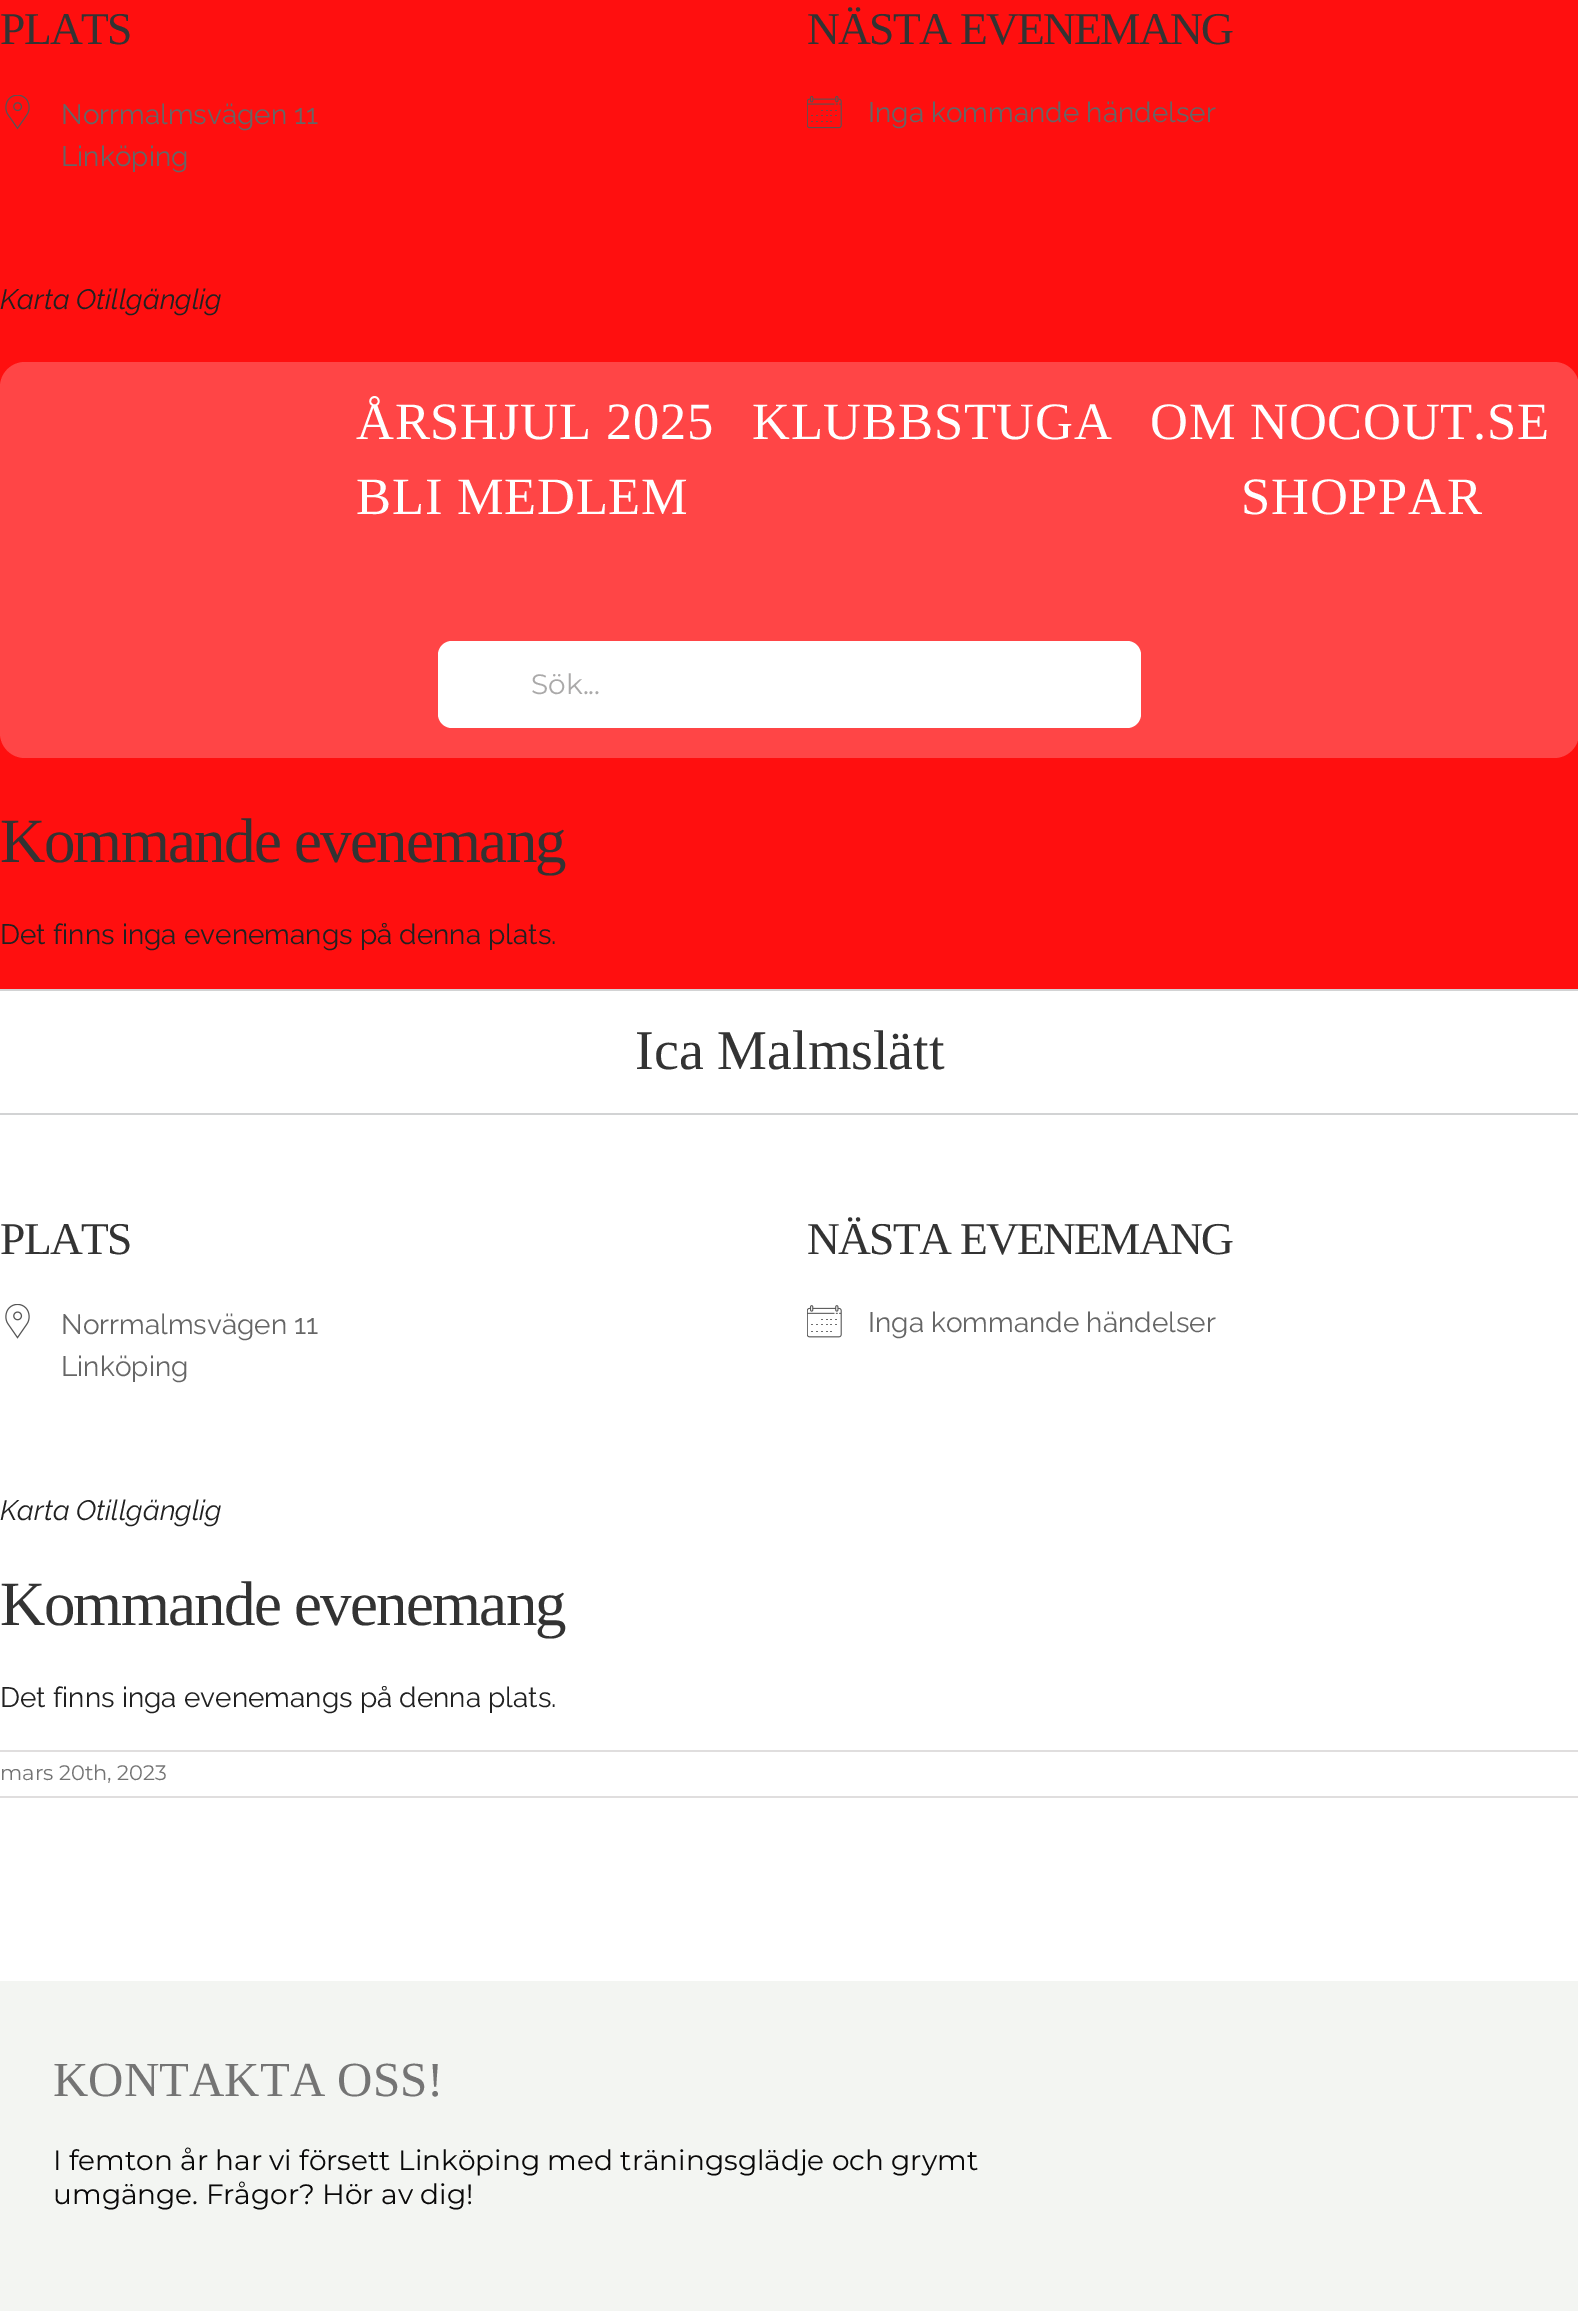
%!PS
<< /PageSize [1578 2311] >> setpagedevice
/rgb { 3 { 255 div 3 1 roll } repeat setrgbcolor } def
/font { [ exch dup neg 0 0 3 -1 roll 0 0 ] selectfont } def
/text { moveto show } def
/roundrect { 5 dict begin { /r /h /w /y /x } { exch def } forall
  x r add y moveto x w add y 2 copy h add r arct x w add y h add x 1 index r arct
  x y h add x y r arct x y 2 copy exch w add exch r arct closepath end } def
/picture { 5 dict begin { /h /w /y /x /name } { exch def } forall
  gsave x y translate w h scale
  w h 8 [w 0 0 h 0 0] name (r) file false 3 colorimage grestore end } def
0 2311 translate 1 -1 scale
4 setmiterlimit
255 255 255 rgb
0 0 1578 2311 rectfill
255 15 15 rgb
0 0 1578 989 rectfill
(img_01.rgb) 5 95 25 35 picture
(img_02.rgb) 807 95 35 34 picture
255 69 70 rgb
0 362 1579 396 25 roundrect fill
255 255 255 rgb
438 641 703 87 14 roundrect fill
210 211 212 rgb
0 989 1578 2 rectfill
0 1113 1578 2 rectfill
(img_03.rgb) 5 1304 25 35 picture
(img_04.rgb) 807 1305 35 33 picture
224 222 222 rgb
0 1750 1578 2 rectfill
0 1796 1578 2 rectfill
243 245 242 rgb
0 1981 1578 330 rectfill
/LiberationSerif-Regular 45.5 font
51 51 51 rgb
0 44 moveto -1.75 0 (PLATS) ashow
/Raleway-Regular 28 font
102 102 102 rgb
(Norrmalmsvägen 11) 61 124 text
(Linköping) 61 166 text
/LiberationSerif-Regular 45.5 font
51 51 51 rgb
807 44 moveto -1.75 0 (NÄSTA EVENEMANG) ashow
/Raleway-Regular 28 font
102 102 102 rgb
(Inga kommande händelser) 868 122 text
/Raleway-Italic 28 font
33 33 33 rgb
(Karta Otillgänglig) 0 309 text
/LiberationSerif-Regular 52.5 font
255 255 255 rgb
356 439 moveto 0.75 0 (ÅRSHJUL 2025) ashow
752 439 moveto 0.75 0 (KLUBBSTUGA) ashow
1150 439 moveto 0.75 0 (OM NOCOUT.SE) ashow
356 514 moveto 0.75 0 (BLI MEDLEM) ashow
1241 514 moveto 0.75 0 (SHOPPAR) ashow
/Montserrat-Regular 28 font
170 169 169 rgb
(Sök...) 531 694 text
/LiberationSerif-Regular 63 font
51 51 51 rgb
0 862 moveto -1.75 0 (Kommande evenemang) ashow
/Raleway-Regular 28 font
33 33 33 rgb
(Det finns inga evenemangs på denna plats.) 0 944 text
/LiberationSerif-Regular 56 font
51 51 51 rgb
(Ica Malmslätt) 635 1069 text
/LiberationSerif-Regular 45.5 font
0 1254 moveto -1.75 0 (PLATS) ashow
/Raleway-Regular 28 font
102 102 102 rgb
(Norrmalmsvägen 11) 61 1334 text
(Linköping) 61 1376 text
/LiberationSerif-Regular 45.5 font
51 51 51 rgb
807 1254 moveto -1.75 0 (NÄSTA EVENEMANG) ashow
/Raleway-Regular 28 font
102 102 102 rgb
(Inga kommande händelser) 868 1332 text
/Raleway-Italic 28 font
33 33 33 rgb
(Karta Otillgänglig) 0 1520 text
/LiberationSerif-Regular 63 font
51 51 51 rgb
0 1625 moveto -1.75 0 (Kommande evenemang) ashow
/Raleway-Regular 28 font
33 33 33 rgb
(Det finns inga evenemangs på denna plats.) 0 1707 text
/Montserrat-Regular 21 font
116 116 116 rgb
(mars 20th, 2023) 0 1780 text
/LiberationSerif-Regular 49 font
(KONTAKTA OSS!) 53 2096 text
/Montserrat-Regular 28 font
10 9 9 rgb
(I femton år har vi försett Linköping med träningsglädje och grymt) 53 2170 text
(umgänge. Frågor? Hör av dig!) 53 2204 text
showpage
